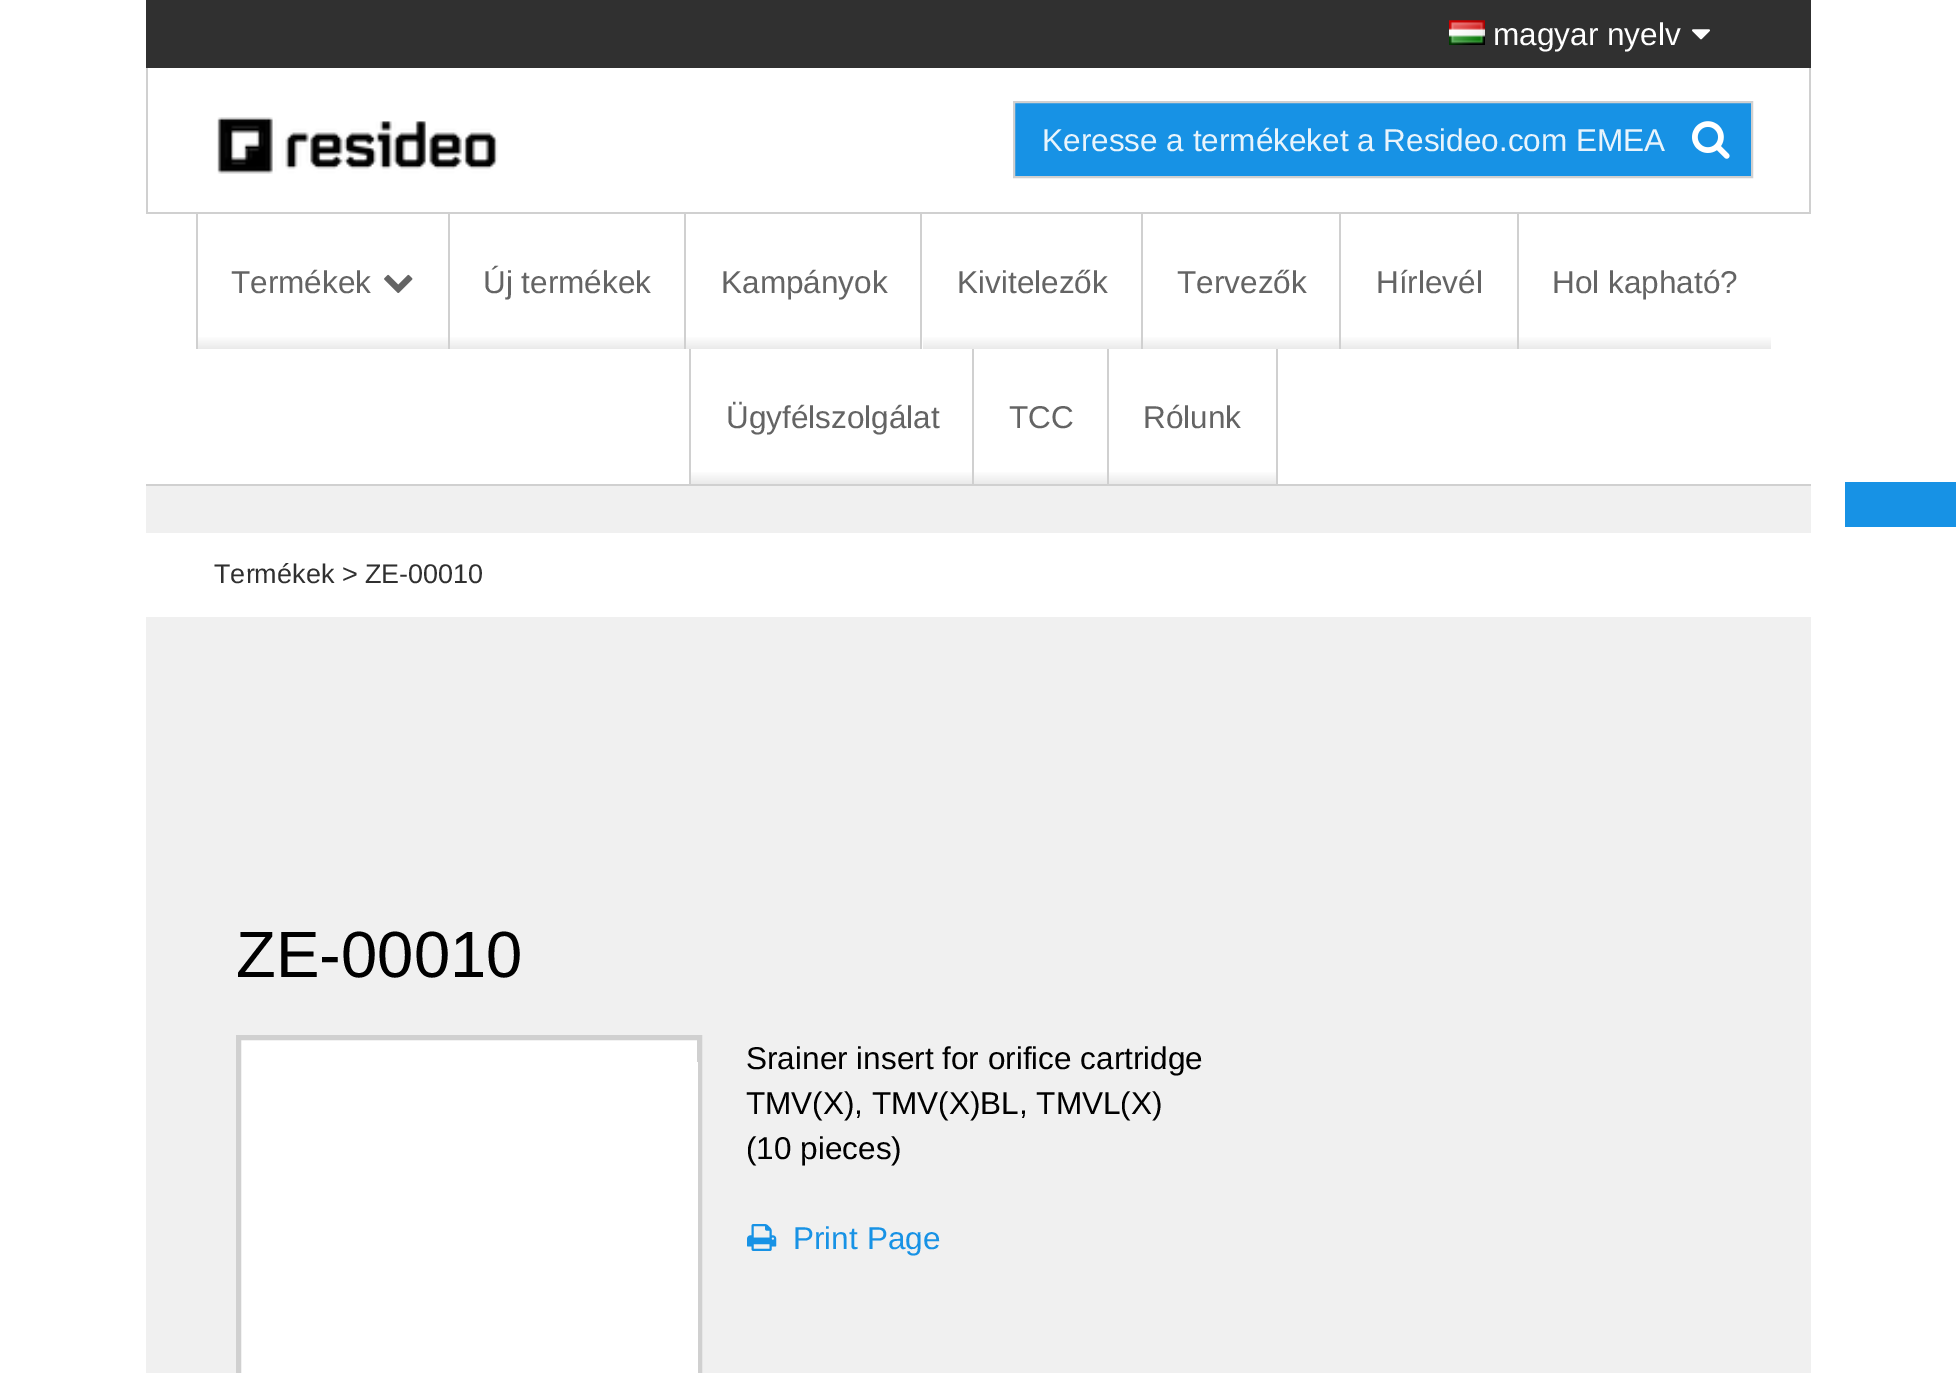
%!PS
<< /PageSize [1956 1373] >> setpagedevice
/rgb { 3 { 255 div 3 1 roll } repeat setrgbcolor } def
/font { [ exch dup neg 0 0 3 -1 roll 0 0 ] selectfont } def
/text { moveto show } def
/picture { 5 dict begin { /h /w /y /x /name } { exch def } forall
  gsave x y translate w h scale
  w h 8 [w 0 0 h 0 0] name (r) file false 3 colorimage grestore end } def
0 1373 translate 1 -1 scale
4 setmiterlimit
255 255 255 rgb
0 0 1956 1373 rectfill
48 48 48 rgb
146 0 1665 68 rectfill
(img_01.rgb) 1449 20 36 25 picture
(img_02.rgb) 1692 29 18 11 picture
208 208 208 rgb
1809 68 2 146 rectfill
146 212 1665 2 rectfill
146 68 2 146 rectfill
(img_03.rgb) 217 117 281 57 picture
23 146 229 rgb
1014 102 moveto 738 0 rlineto 0 75 rlineto -738 0 rlineto closepath gsave fill grestore
208 208 208 rgb
2 setlinewidth
stroke
(img_04.rgb) 1692 121 38 38 picture
196 214 2 135 rectfill
gsave 198 337 moveto 250 0 rlineto 0 12 rlineto -250 0 rlineto closepath clip newpath
<< /ShadingType 2 /ColorSpace /DeviceRGB /Coords [323 214 323 349] /Extend [true true] /Function << /FunctionType 3 /Domain [0 1] /Functions [<< /FunctionType 2 /Domain [0 1] /C0 [1 1 1] /C1 [1 1 1] /N 1 >> << /FunctionType 2 /Domain [0 1] /C0 [1 1 1] /C1 [0.918 0.918 0.918] /N 1 >>] /Bounds [0.9] /Encode [0 1 0 1] >> >> shfill grestore
(img_05.rgb) 384 274 29 19 picture
448 214 2 135 rectfill
gsave 450 337 moveto 234 0 rlineto 0 12 rlineto -234 0 rlineto closepath clip newpath
<< /ShadingType 2 /ColorSpace /DeviceRGB /Coords [567 214 567 349] /Extend [true true] /Function << /FunctionType 3 /Domain [0 1] /Functions [<< /FunctionType 2 /Domain [0 1] /C0 [1 1 1] /C1 [1 1 1] /N 1 >> << /FunctionType 2 /Domain [0 1] /C0 [1 1 1] /C1 [0.918 0.918 0.918] /N 1 >>] /Bounds [0.9] /Encode [0 1 0 1] >> >> shfill grestore
684 214 2 135 rectfill
gsave 686 337 moveto 234 0 rlineto 0 12 rlineto -234 0 rlineto closepath clip newpath
<< /ShadingType 2 /ColorSpace /DeviceRGB /Coords [803 214 803 349] /Extend [true true] /Function << /FunctionType 3 /Domain [0 1] /Functions [<< /FunctionType 2 /Domain [0 1] /C0 [1 1 1] /C1 [1 1 1] /N 1 >> << /FunctionType 2 /Domain [0 1] /C0 [1 1 1] /C1 [0.918 0.918 0.918] /N 1 >>] /Bounds [0.9] /Encode [0 1 0 1] >> >> shfill grestore
920 214 2 135 rectfill
gsave 923 337 moveto 218 0 rlineto 0 12 rlineto -218 0 rlineto closepath clip newpath
<< /ShadingType 2 /ColorSpace /DeviceRGB /Coords [1032 214 1032 349] /Extend [true true] /Function << /FunctionType 3 /Domain [0 1] /Functions [<< /FunctionType 2 /Domain [0 1] /C0 [1 1 1] /C1 [1 1 1] /N 1 >> << /FunctionType 2 /Domain [0 1] /C0 [1 1 1] /C1 [0.918 0.918 0.918] /N 1 >>] /Bounds [0.9] /Encode [0 1 0 1] >> >> shfill grestore
1141 214 2 135 rectfill
gsave 1143 337 moveto 196 0 rlineto 0 12 rlineto -196 0 rlineto closepath clip newpath
<< /ShadingType 2 /ColorSpace /DeviceRGB /Coords [1242 214 1242 349] /Extend [true true] /Function << /FunctionType 3 /Domain [0 1] /Functions [<< /FunctionType 2 /Domain [0 1] /C0 [1 1 1] /C1 [1 1 1] /N 1 >> << /FunctionType 2 /Domain [0 1] /C0 [1 1 1] /C1 [0.918 0.918 0.918] /N 1 >>] /Bounds [0.9] /Encode [0 1 0 1] >> >> shfill grestore
1339 214 2 135 rectfill
gsave 1341 337 moveto 176 0 rlineto 0 12 rlineto -176 0 rlineto closepath clip newpath
<< /ShadingType 2 /ColorSpace /DeviceRGB /Coords [1429 214 1429 349] /Extend [true true] /Function << /FunctionType 3 /Domain [0 1] /Functions [<< /FunctionType 2 /Domain [0 1] /C0 [1 1 1] /C1 [1 1 1] /N 1 >> << /FunctionType 2 /Domain [0 1] /C0 [1 1 1] /C1 [0.918 0.918 0.918] /N 1 >>] /Bounds [0.9] /Encode [0 1 0 1] >> >> shfill grestore
1517 214 2 135 rectfill
gsave 1519 337 moveto 252 0 rlineto 0 12 rlineto -252 0 rlineto closepath clip newpath
<< /ShadingType 2 /ColorSpace /DeviceRGB /Coords [1645 214 1645 349] /Extend [true true] /Function << /FunctionType 3 /Domain [0 1] /Functions [<< /FunctionType 2 /Domain [0 1] /C0 [1 1 1] /C1 [1 1 1] /N 1 >> << /FunctionType 2 /Domain [0 1] /C0 [1 1 1] /C1 [0.918 0.918 0.918] /N 1 >>] /Bounds [0.9] /Encode [0 1 0 1] >> >> shfill grestore
689 349 2 135 rectfill
gsave 691 472 moveto 281 0 rlineto 0 12 rlineto -281 0 rlineto closepath clip newpath
<< /ShadingType 2 /ColorSpace /DeviceRGB /Coords [831 349 831 484] /Extend [true true] /Function << /FunctionType 3 /Domain [0 1] /Functions [<< /FunctionType 2 /Domain [0 1] /C0 [1 1 1] /C1 [1 1 1] /N 1 >> << /FunctionType 2 /Domain [0 1] /C0 [1 1 1] /C1 [0.918 0.918 0.918] /N 1 >>] /Bounds [0.9] /Encode [0 1 0 1] >> >> shfill grestore
972 349 2 135 rectfill
gsave 974 472 moveto 133 0 rlineto 0 12 rlineto -133 0 rlineto closepath clip newpath
<< /ShadingType 2 /ColorSpace /DeviceRGB /Coords [1041 349 1041 484] /Extend [true true] /Function << /FunctionType 3 /Domain [0 1] /Functions [<< /FunctionType 2 /Domain [0 1] /C0 [1 1 1] /C1 [1 1 1] /N 1 >> << /FunctionType 2 /Domain [0 1] /C0 [1 1 1] /C1 [0.918 0.918 0.918] /N 1 >>] /Bounds [0.9] /Encode [0 1 0 1] >> >> shfill grestore
1276 349 2 135 rectfill
1107 349 2 135 rectfill
gsave 1109 472 moveto 167 0 rlineto 0 12 rlineto -167 0 rlineto closepath clip newpath
<< /ShadingType 2 /ColorSpace /DeviceRGB /Coords [1193 349 1193 484] /Extend [true true] /Function << /FunctionType 3 /Domain [0 1] /Functions [<< /FunctionType 2 /Domain [0 1] /C0 [1 1 1] /C1 [1 1 1] /N 1 >> << /FunctionType 2 /Domain [0 1] /C0 [1 1 1] /C1 [0.918 0.918 0.918] /N 1 >>] /Bounds [0.9] /Encode [0 1 0 1] >> >> shfill grestore
23 146 229 rgb
1845 482 111 45 rectfill
240 240 240 rgb
146 486 1665 887 rectfill
208 208 208 rgb
146 484 1665 2 rectfill
255 255 255 rgb
146 533 1665 84 rectfill
238.5 1037.5 moveto 461 0 rlineto 0 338 rlineto -461 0 rlineto closepath gsave fill grestore
208 208 208 rgb
5 setlinewidth
stroke
255 255 255 rgb
697 1062 1 311 rectfill
(img_06.rgb) 747 1224 30 27 picture
/LiberationSans-Regular 31.5 font
(magyar nyelv) 1493 45 text
232 244 252 rgb
(Keresse a termékeket a Resideo.com EMEA) 1042 151 text
100 100 100 rgb
(Termékek) 231 293 text
(Új termékek) 483 293 text
(Kampányok) 721 293 text
(Kivitelezők) 957 293 text
(Tervezők) 1177 293 text
(Hírlevél) 1376 293 text
(Hol kapható?) 1552 293 text
(Ügyfélszolgálat) 726 428 text
(TCC) 1009 428 text
(Rólunk) 1143 428 text
/LiberationSans-Regular 27 font
48 48 48 rgb
(Termékek > ZE-00010) 214 583 text
/LiberationSans-Regular 65.25 font
0 0 0 rgb
(ZE-00010) 236 977 text
/LiberationSans-Regular 31.5 font
(Srainer insert for orifice cartridge) 746 1069 text
(TMV\(X\), TMV\(X\)BL, TMVL\(X\)) 746 1114 text
(\(10 pieces\)) 746 1159 text
23 146 229 rgb
(Print Page) 793 1249 text
showpage
